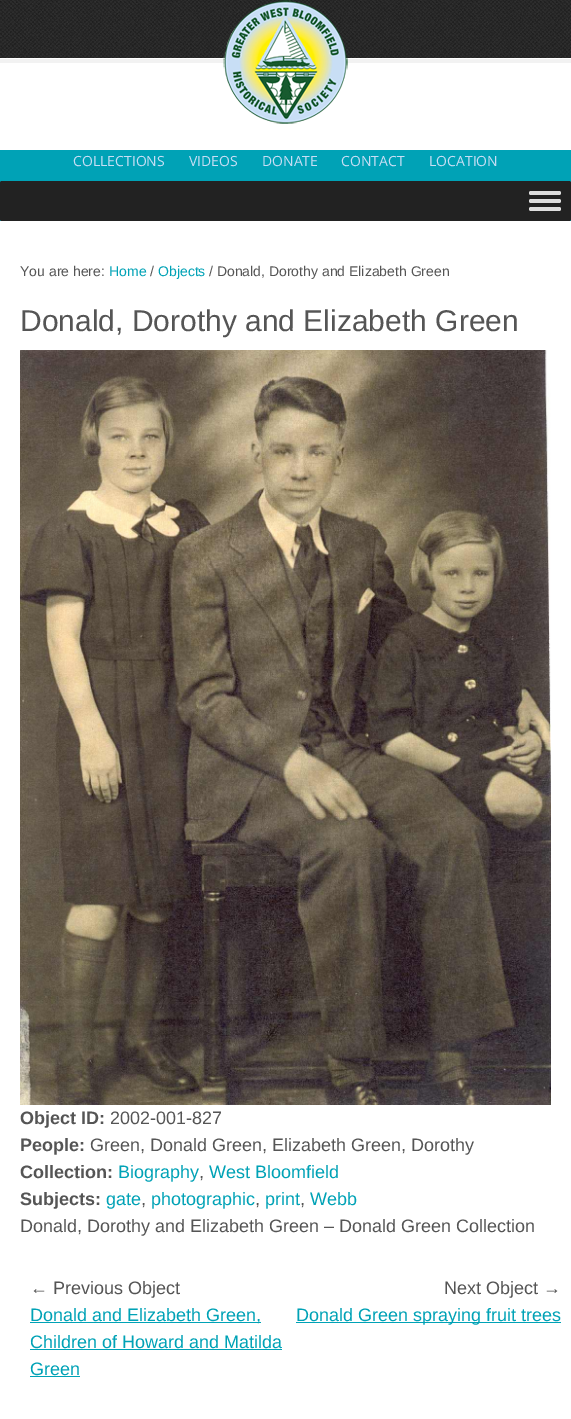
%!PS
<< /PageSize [571 1419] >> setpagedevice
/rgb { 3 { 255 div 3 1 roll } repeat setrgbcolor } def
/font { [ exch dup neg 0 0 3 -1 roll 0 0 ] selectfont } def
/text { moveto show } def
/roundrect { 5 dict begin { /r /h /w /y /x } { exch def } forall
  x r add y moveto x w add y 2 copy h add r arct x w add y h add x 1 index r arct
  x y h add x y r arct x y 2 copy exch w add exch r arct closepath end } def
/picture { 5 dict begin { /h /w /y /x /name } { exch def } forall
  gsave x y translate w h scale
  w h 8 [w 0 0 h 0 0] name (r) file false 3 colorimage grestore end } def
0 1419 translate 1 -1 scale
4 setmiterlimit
255 255 255 rgb
0 0 571 1419 rectfill
(img_01.rgb) 0 0 571 63 picture
0 162 182 rgb
0 150 571 71 rectfill
34 34 34 rgb
0 181 571 40 2 roundrect fill
221 221 221 rgb
529 191 32 4 2 roundrect fill
529 199 32 4 2 roundrect fill
529 207 32 4 2 roundrect fill
(img_02.rgb) 223 0 125 124 picture
(img_03.rgb) 20 350 531 755 picture
0 162 182 rgb
30 1322 231 1 rectfill
30 1349 252 1 rectfill
30 1376 50 1 rectfill
296 1322 265 1 rectfill
/OpenSans-Regular 14 font
200 222 245 rgb
(COLLECTIONS) 73 166 text
(VIDEOS) 189 166 text
(DONATE) 262 166 text
(CONTACT) 341 166 text
(LOCATION) 429 166 text
/LiberationSans-Regular 14 font
85 85 85 rgb
(You are here:) 20 276 text
0 162 182 rgb
(Home) 109 276 text
85 85 85 rgb
(/) 150 276 text
0 162 182 rgb
(Objects) 158 276 text
85 85 85 rgb
(/ Donald, Dorothy and Elizabeth Green) 209 276 text
/LiberationSans-Regular 30 font
(Donald, Dorothy and Elizabeth Green) 20 331 text
/LiberationSans-Bold 18 font
(Object ID:) 20 1124 text
/LiberationSans-Regular 18 font
(2002-001-827) 110 1124 text
/LiberationSans-Bold 18 font
(People:) 20 1151 text
/LiberationSans-Regular 18 font
(Green, Donald Green, Elizabeth Green, Dorothy) 90 1151 text
/LiberationSans-Bold 18 font
(Collection:) 20 1178 text
/LiberationSans-Regular 18 font
0 162 182 rgb
(Biography) 118 1178 text
85 85 85 rgb
(,) 199 1178 text
0 162 182 rgb
(West Bloomfield) 209 1178 text
/LiberationSans-Bold 18 font
85 85 85 rgb
(Subjects:) 20 1205 text
/LiberationSans-Regular 18 font
0 162 182 rgb
(gate) 106 1205 text
85 85 85 rgb
(,) 141 1205 text
0 162 182 rgb
(photographic) 151 1205 text
85 85 85 rgb
(,) 255 1205 text
0 162 182 rgb
(print) 265 1205 text
85 85 85 rgb
(,) 300 1205 text
0 162 182 rgb
(Webb) 310 1205 text
85 85 85 rgb
(Donald, Dorothy and Elizabeth Green – Donald Green Collection) 20 1232 text
(← Previous Object) 30 1294 text
0 162 182 rgb
(Donald and Elizabeth Green,) 30 1321 text
(Children of Howard and Matilda) 30 1348 text
(Green) 30 1375 text
85 85 85 rgb
(Next Object →) 444 1294 text
0 162 182 rgb
(Donald Green spraying fruit trees) 296 1321 text
showpage
